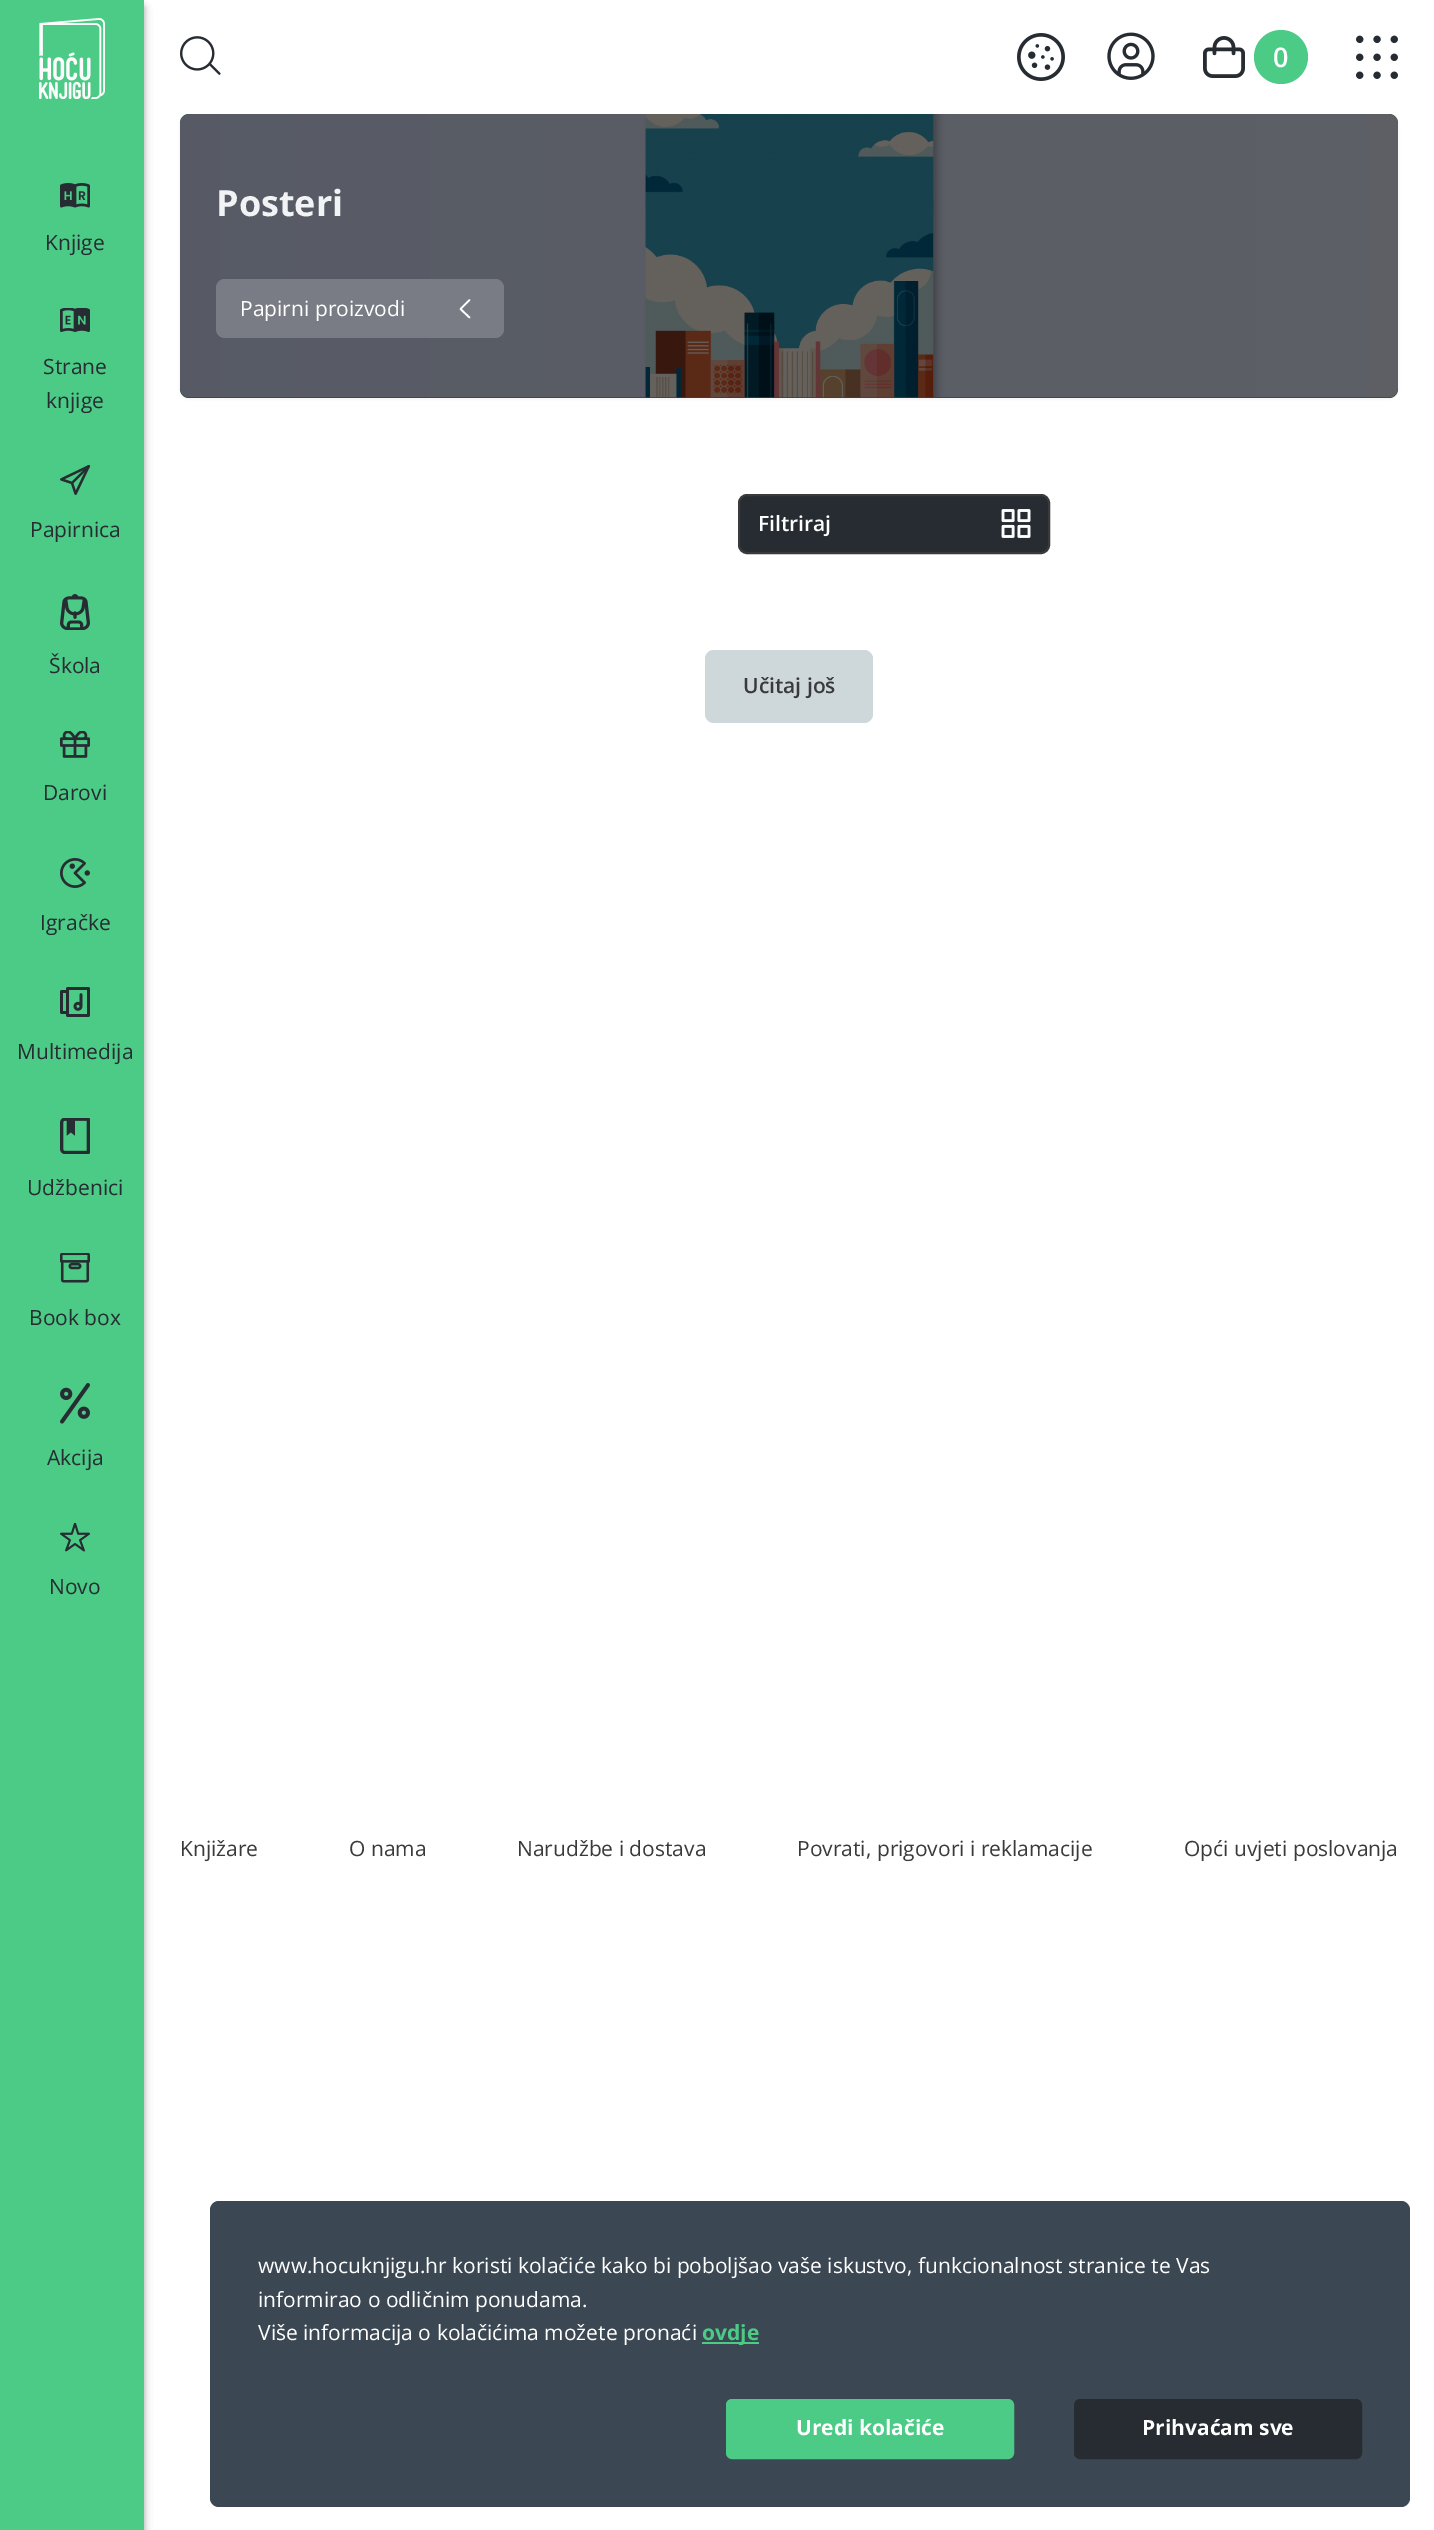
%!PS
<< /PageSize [1434 2530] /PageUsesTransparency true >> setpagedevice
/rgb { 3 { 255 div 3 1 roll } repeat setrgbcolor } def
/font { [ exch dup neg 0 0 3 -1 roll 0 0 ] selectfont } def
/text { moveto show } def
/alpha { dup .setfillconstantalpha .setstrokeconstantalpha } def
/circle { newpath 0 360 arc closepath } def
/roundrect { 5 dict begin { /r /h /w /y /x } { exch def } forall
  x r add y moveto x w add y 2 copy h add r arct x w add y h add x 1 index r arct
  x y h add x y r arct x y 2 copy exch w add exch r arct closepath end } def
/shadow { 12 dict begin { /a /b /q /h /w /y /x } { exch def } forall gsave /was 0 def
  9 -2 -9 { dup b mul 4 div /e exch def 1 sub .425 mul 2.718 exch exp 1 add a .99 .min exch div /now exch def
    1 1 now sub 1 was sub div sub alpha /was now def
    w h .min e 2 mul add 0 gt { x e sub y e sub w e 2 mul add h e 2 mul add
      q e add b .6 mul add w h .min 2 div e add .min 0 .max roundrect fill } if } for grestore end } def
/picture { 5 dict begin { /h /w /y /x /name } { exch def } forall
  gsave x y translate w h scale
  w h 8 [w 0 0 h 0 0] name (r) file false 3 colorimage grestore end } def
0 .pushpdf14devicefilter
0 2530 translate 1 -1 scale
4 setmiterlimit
255 255 255 rgb
0 0 1434 2530 rectfill
(img_01.rgb) 180 36 41 39 picture
(img_02.rgb) 1017 33 48 48 picture
(img_03.rgb) 1107 32 48 48 picture
(img_04.rgb) 1203 36 42 42 picture
75 203 134 rgb
1281 57 27 circle fill
(img_05.rgb) 1356 35 42 44 picture
0 0 0 rgb
3 6 138 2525 0 3 0.35 shadow
2 8 141 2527 0 4.5 0.35 shadow
75 203 134 rgb
0 0 144 2530 rectfill
(img_06.rgb) 39 18 66 81 picture
(img_07.rgb) 60 183 30 25 picture
(img_08.rgb) 60 308 30 24 picture
(img_09.rgb) 60 465 30 30 picture
(img_10.rgb) 60 594 30 36 picture
(img_11.rgb) 60 731 30 27 picture
(img_12.rgb) 60 858 30 30 picture
(img_13.rgb) 60 987 30 30 picture
(img_14.rgb) 60 1118 30 36 picture
(img_15.rgb) 60 1253 30 30 picture
(img_16.rgb) 60 1383 30 41 picture
(img_17.rgb) 60 1523 30 29 picture
0 0 0 rgb
180 116 1218 283 9 1.5 0.05 shadow
75 203 134 rgb
180 114 1218 284 9 roundrect fill
(img_18.rgb) 180 114 1218 284 picture
0.6 alpha
0 0 0 rgb
180 114 1218 284 9 roundrect fill
1 alpha
121 124 132 rgb
216 279 288 59 9 roundrect fill
255 255 255 rgb
1.7 setlinewidth
1 setlinecap
1 setlinejoin
469.5 317.5 moveto -9 -8.5 rlineto 9 -9 rlineto stroke
38 44 50 rgb
739 495 310 58 8 roundrect gsave fill grestore
58 58 58 rgb
2 setlinewidth
0 setlinecap
0 setlinejoin
stroke
(img_19.rgb) 1001 509 30 29 picture
206 215 218 rgb
705 650 168 73 9 roundrect fill
59 71 82 rgb
210 2201 1200 306 9 roundrect fill
75 203 134 rgb
702 2342 57 2 rectfill
727 2400 286 58 5 roundrect gsave fill grestore
stroke
38 44 50 rgb
1075 2400 286 58 5 roundrect gsave fill grestore
stroke
/OpenSans-SemiBold 27 font
255 255 255 rgb
(0) 1273 67 text
/OpenSans-Regular 21 font
38 44 50 rgb
(Knjige) 45 250 text
(Strane) 43 374 text
(knjige) 46 408 text
(Papirnica) 30 537 text
(Škola) 49 673 text
(Darovi) 43 800 text
(Igračke) 40 930 text
(Multimedija) 17 1059 text
(Udžbenici) 27 1195 text
(Book box) 29 1325 text
(Akcija) 47 1465 text
(Novo) 49 1594 text
/OpenSans-Bold 36 font
241 243 244 rgb
(Posteri) 216 216 text
/OpenSans-Regular 21 font
255 255 255 rgb
(Papirni proizvodi) 240 316 text
/OpenSans-SemiBold 21 font
(Filtriraj) 758 531 text
58 58 58 rgb
(Učitaj još) 743 693 text
/OpenSans-Regular 21 font
255 255 255 rgb
(www.hocuknjigu.hr koristi kolačiće kako bi poboljšao vaše iskustvo, funkcionalnost stranice te Vas) 258 2273 text
(informirao o odličnim ponudama.) 258 2307 text
(Više informacija o kolačićima možete pronaći) 258 2340 text
/OpenSans-Bold 21 font
75 203 134 rgb
(ovdje) 702 2340 text
255 255 255 rgb
(Uredi kolačiće) 796 2435 text
(Prihvaćam sve) 1142 2435 text
/OpenSans-Regular 21 font
58 58 58 rgb
(Knjižare) 180 1856 text
(O nama) 349 1856 text
(Narudžbe i dostava) 517 1856 text
(Povrati, prigovori i reklamacije) 797 1856 text
(Opći uvjeti poslovanja) 1184 1856 text
.poppdf14devicefilter showpage
